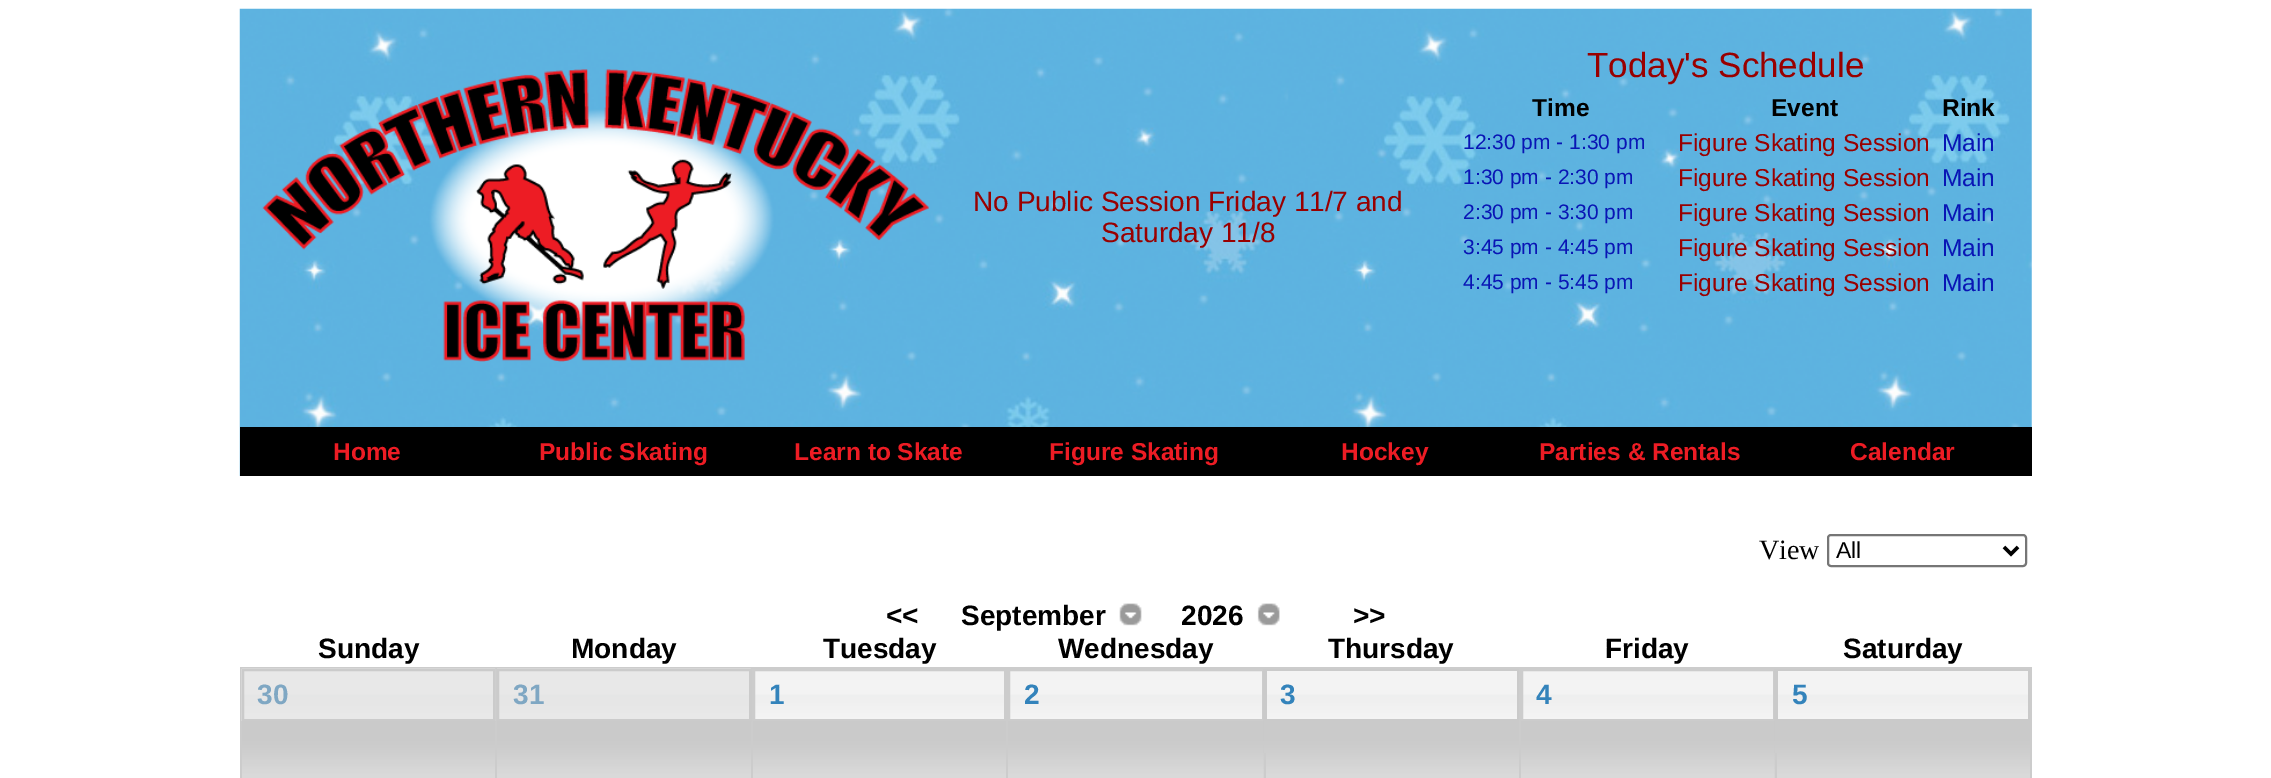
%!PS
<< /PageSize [2271 778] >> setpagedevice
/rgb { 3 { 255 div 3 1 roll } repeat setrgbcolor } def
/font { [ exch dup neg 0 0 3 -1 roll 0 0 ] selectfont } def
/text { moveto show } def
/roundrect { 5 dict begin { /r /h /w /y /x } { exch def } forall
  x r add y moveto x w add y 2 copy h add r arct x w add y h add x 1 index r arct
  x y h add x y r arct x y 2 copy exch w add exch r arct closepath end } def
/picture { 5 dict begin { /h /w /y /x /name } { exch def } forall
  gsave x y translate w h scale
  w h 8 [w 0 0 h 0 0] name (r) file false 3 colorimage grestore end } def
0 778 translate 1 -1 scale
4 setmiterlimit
255 255 255 rgb
0 0 2271 778 rectfill
(img_01.rgb) 239 8 1793 468 picture
(img_02.rgb) 262 69 667 293 picture
0 0 0 rgb
240 427 1792 49 rectfill
118 118 118 rgb
2 setlinewidth
1828 535 198 31 3 roundrect stroke
0 0 0 rgb
3.5 setlinewidth
2004 547 moveto 7 7 rlineto 7 -7 rlineto stroke
(img_03.rgb) 1119 603 23 23 picture
(img_04.rgb) 1257 603 23 23 picture
(img_05.rgb) 242 721 253 57 picture
204 204 204 rgb
1519 667 513 2 rectfill
1519 667 2 111 rectfill
1006 667 515 2 rectfill
1006 667 2 111 rectfill
751 667 257 2 rectfill
751 667 2 111 rectfill
495 667 258 2 rectfill
495 667 2 111 rectfill
240 667 257 2 rectfill
240 667 2 111 rectfill
220 220 220 rgb
244 671 249 48 rectfill
(img_06.rgb) 241 668 255 53 picture
203 203 203 rgb
2 setlinewidth
243 670 251 50 rectstroke
(img_07.rgb) 497 721 254 57 picture
220 220 220 rgb
499 671 250 48 rectfill
(img_08.rgb) 497 668 254 51 picture
203 203 203 rgb
498 670 252 50 rectstroke
(img_05.rgb) 753 721 253 57 picture
(img_09.rgb) 755 671 249 48 picture
204 204 204 rgb
754 670 251 50 rectstroke
(img_10.rgb) 1008 721 256 57 picture
(img_11.rgb) 1010 671 252 48 picture
1009 670 254 50 rectstroke
(img_12.rgb) 1263 669 256 109 picture
1264 753 2 25 rectfill
(img_13.rgb) 1267 671 250 48 picture
(img_14.rgb) 1521 721 254 57 picture
(img_13.rgb) 1523 671 250 48 picture
1522 670 252 50 rectstroke
(img_12.rgb) 1774 669 256 109 picture
2030 667 2 111 rectfill
1775 753 2 25 rectfill
(img_13.rgb) 1778 671 250 48 picture
/LiberationSans-Regular 28 font
153 0 0 rgb
(No Public Session Friday 11/7 and) 973 211 text
(Saturday 11/8) 1101 242 text
/LiberationSans-Regular 35 font
(Today's Schedule) 1587 77 text
/LiberationSans-Bold 24.5 font
0 0 0 rgb
(Time) 1532 116 text
(Event) 1771 116 text
(Rink) 1942 116 text
/LiberationSans-Regular 21 font
9 21 181 rgb
(12:30 pm - 1:30 pm) 1463 149 text
/LiberationSans-Regular 24.5 font
153 0 0 rgb
(Figure Skating Session) 1678 151 text
9 21 181 rgb
(Main) 1942 151 text
/LiberationSans-Regular 21 font
(1:30 pm - 2:30 pm) 1463 184 text
/LiberationSans-Regular 24.5 font
153 0 0 rgb
(Figure Skating Session) 1678 186 text
9 21 181 rgb
(Main) 1942 186 text
/LiberationSans-Regular 21 font
(2:30 pm - 3:30 pm) 1463 219 text
/LiberationSans-Regular 24.5 font
153 0 0 rgb
(Figure Skating Session) 1678 221 text
9 21 181 rgb
(Main) 1942 221 text
/LiberationSans-Regular 21 font
(3:45 pm - 4:45 pm) 1463 254 text
/LiberationSans-Regular 24.5 font
153 0 0 rgb
(Figure Skating Session) 1678 256 text
9 21 181 rgb
(Main) 1942 256 text
/LiberationSans-Regular 21 font
(4:45 pm - 5:45 pm) 1463 289 text
/LiberationSans-Regular 24.5 font
153 0 0 rgb
(Figure Skating Session) 1678 291 text
9 21 181 rgb
(Main) 1942 291 text
/LiberationSans-Bold 24.5 font
237 28 36 rgb
(Home) 333 460 text
(Public Skating) 539 460 text
(Learn to Skate) 794 460 text
(Figure Skating) 1049 460 text
(Hockey) 1341 460 text
(Parties & Rentals) 1539 460 text
(Calendar) 1850 460 text
/LiberationSerif-Regular 28 font
0 0 0 rgb
(View) 1759 559 text
/LiberationSans-Regular 23 font
(All) 1836 558 text
/LiberationSans-Bold 28 font
(<<) 886 625 text
(September) 961 625 text
(2026) 1181 625 text
(>>) 1353 625 text
(Sunday) 318 658 text
(Monday) 571 658 text
(Tuesday) 823 658 text
(Wednesday) 1058 658 text
(Thursday) 1328 658 text
(Friday) 1605 658 text
(Saturday) 1843 658 text
127 167 195 rgb
(30) 257 704 text
(31) 513 704 text
51 131 187 rgb
(1) 769 704 text
(2) 1024 704 text
(3) 1280 704 text
(4) 1536 704 text
(5) 1792 704 text
showpage
